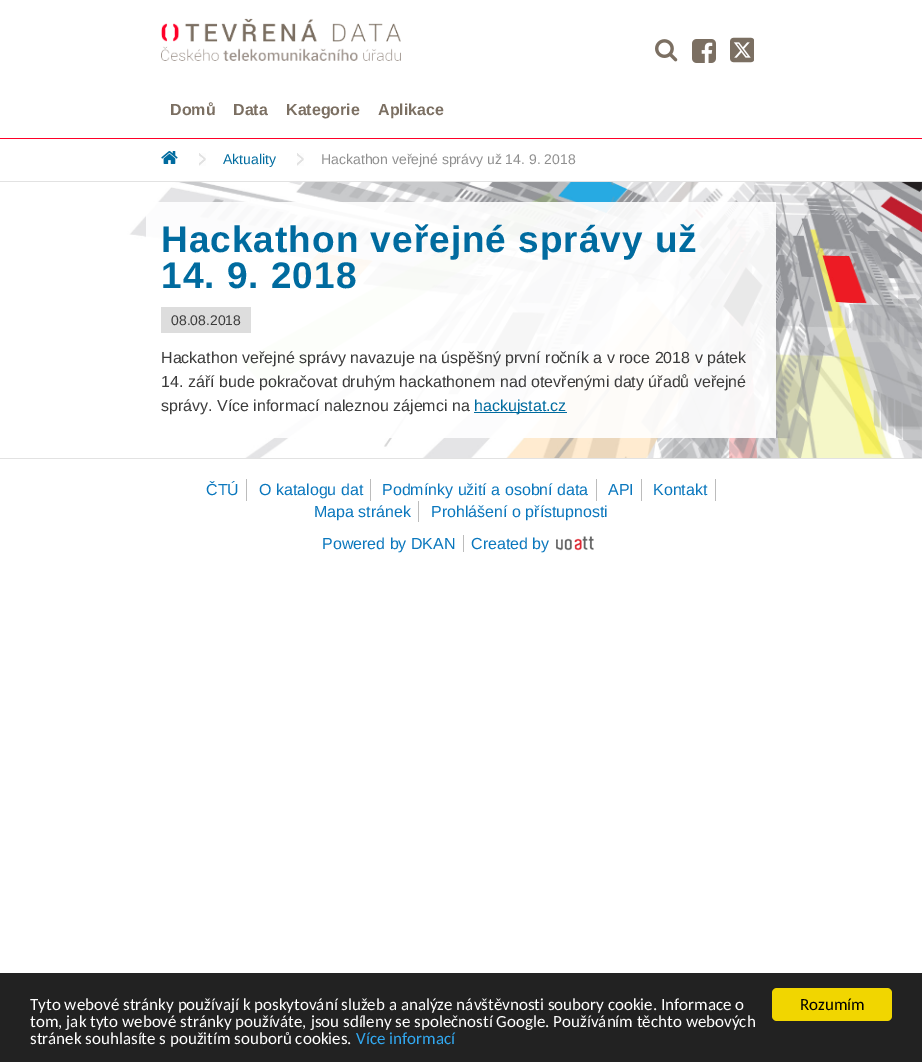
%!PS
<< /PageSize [922 1062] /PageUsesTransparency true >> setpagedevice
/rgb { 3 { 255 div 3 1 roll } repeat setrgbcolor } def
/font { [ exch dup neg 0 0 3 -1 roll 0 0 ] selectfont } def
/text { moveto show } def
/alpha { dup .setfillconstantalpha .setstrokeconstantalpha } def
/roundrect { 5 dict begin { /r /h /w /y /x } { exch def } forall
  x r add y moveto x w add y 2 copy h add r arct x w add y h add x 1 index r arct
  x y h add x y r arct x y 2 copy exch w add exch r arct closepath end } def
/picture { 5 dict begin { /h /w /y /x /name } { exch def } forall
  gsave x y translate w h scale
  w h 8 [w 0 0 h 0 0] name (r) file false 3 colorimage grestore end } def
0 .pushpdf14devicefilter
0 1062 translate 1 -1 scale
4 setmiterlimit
255 255 255 rgb
0 0 922 1062 rectfill
255 0 40 rgb
0 138 922 1 rectfill
(img_01.rgb) 161 18 240 43 picture
(img_02.rgb) 655 39 23 23 picture
(img_03.rgb) 692 39 24 24 picture
(img_04.rgb) 730 37 24 26 picture
(img_05.rgb) 106 182 816 276 picture
226 226 226 rgb
0 181 922 1 rectfill
(img_06.rgb) 161 151 17 13 picture
(img_07.rgb) 199 153 7 13 picture
(img_07.rgb) 297 153 7 13 picture
0.9 alpha
255 255 255 rgb
146 202 630 236 rectfill
1 alpha
221 221 221 rgb
161 307 90 26 rectfill
0 107 159 rgb
474 412 93 1 rectfill
226 226 226 rgb
0 458 922 1 rectfill
188 188 188 rgb
246 479 1 22 rectfill
370 479 1 22 rectfill
596 479 1 22 rectfill
641 479 1 22 rectfill
715 479 1 22 rectfill
418 501 1 21 rectfill
463 535 1 17 rectfill
(img_08.rgb) 556 536 38 15 picture
34 34 34 rgb
0 973 922 89 rectfill
241 214 0 rgb
772 988 120 33 5 roundrect fill
/LiberationSans-Bold 16 font
123 111 98 rgb
(Domů) 170 115 text
(Data) 233 115 text
(Kategorie) 286 115 text
(Aplikace) 378 115 text
/LiberationSans-Regular 14 font
0 107 159 rgb
(Aktuality) 223 164 text
143 143 143 rgb
(Hackathon veřejné správy už 14. 9. 2018) 321 164 text
/LiberationSans-Bold 37 font
0 107 159 rgb
161 252 moveto 1 0 (Hackathon veřejné správy už) ashow
161 288 moveto 1 0 (14. 9. 2018) ashow
/LiberationSans-Regular 14 font
59 59 59 rgb
(08.08.2018) 171 325 text
/LiberationSans-Regular 16 font
(Hackathon veřejné správy navazuje na úspěšný první ročník a v roce 2018 v pátek) 161 363 text
(14. září bude pokračovat druhým hackathonem nad otevřenými daty úřadů veřejné) 161 387 text
(správy. Více informací naleznou zájemci na) 161 411 text
0 107 159 rgb
(hackujstat.cz) 474 411 text
10 119 189 rgb
(ČTÚ) 206 495 text
(O katalogu dat) 259 495 text
(Podmínky užití a osobní data) 382 495 text
(API) 608 495 text
(Kontakt) 653 495 text
(Mapa stránek) 314 517 text
(Prohlášení o přístupnosti) 431 517 text
(Powered by DKAN) 322 549 text
(Created by) 471 549 text
/Carlito-Regular 17 font
255 255 255 rgb
(Tyto webové stránky používají k poskytování služeb a analýze návštěvnosti soubory cookie. Informace o) 30 1010 text
(tom, jak tyto webové stránky používáte, jsou sdíleny se společností Google. Používáním těchto webových) 30 1027 text
(stránek souhlasíte s použitím souborů cookies.) 30 1044 text
49 168 240 rgb
(Více informací) 356 1044 text
0 0 0 rgb
(Rozumím) 800 1010 text
.poppdf14devicefilter showpage
